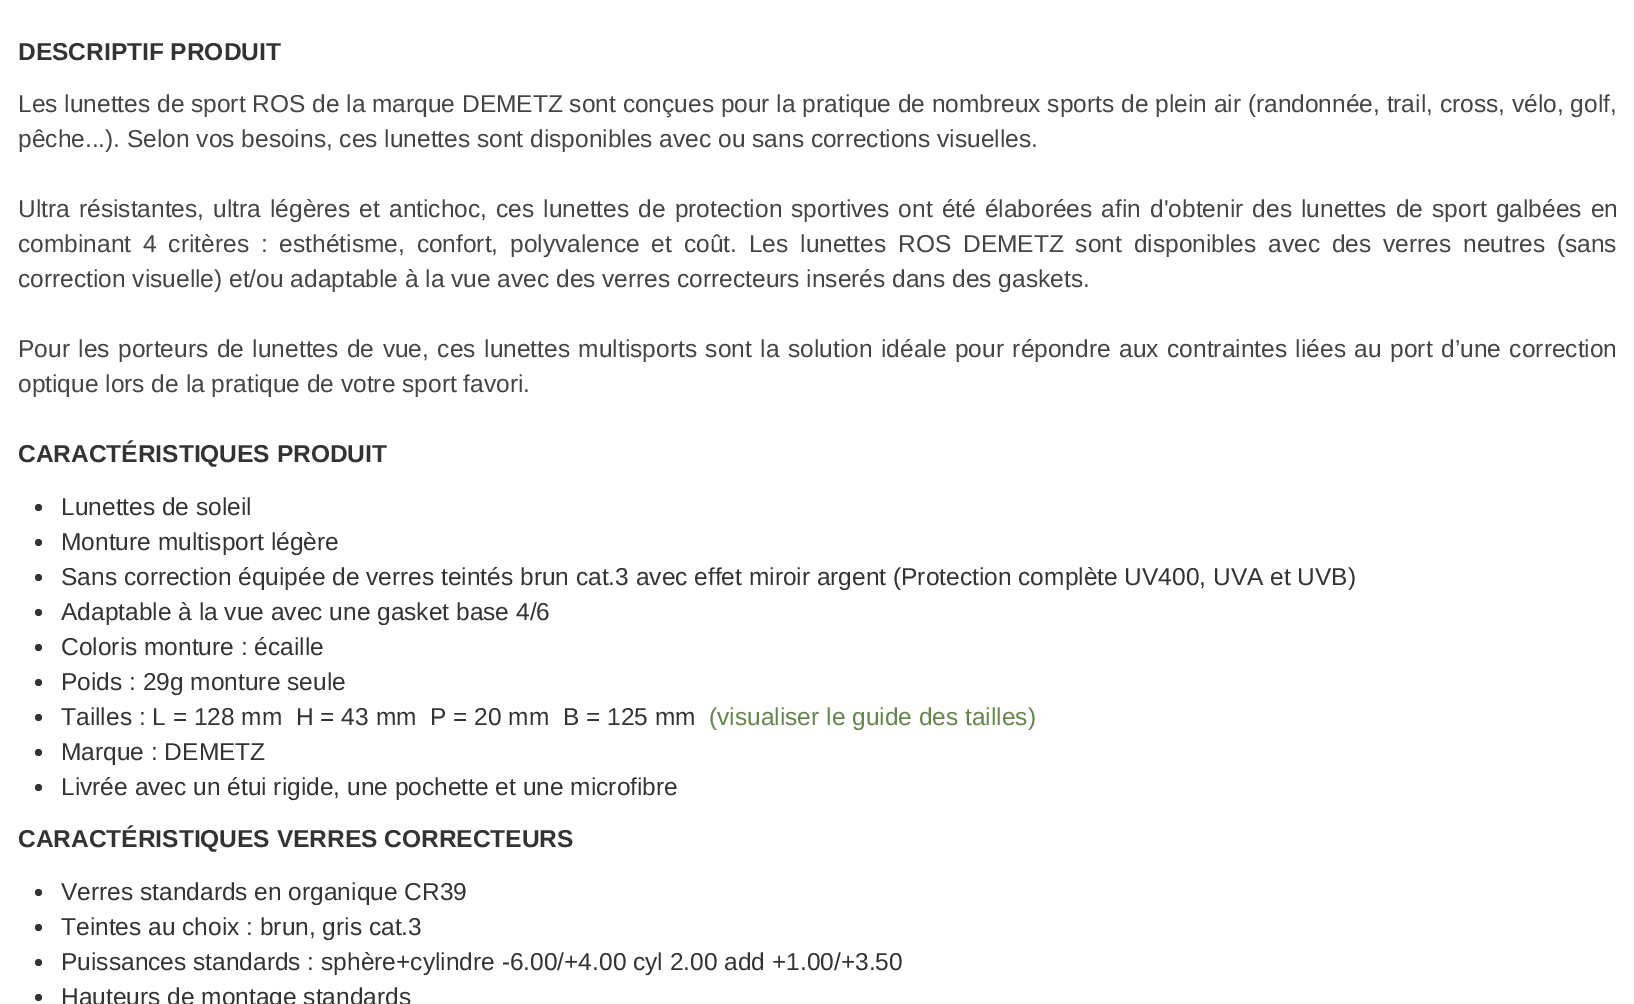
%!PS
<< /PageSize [1634 1004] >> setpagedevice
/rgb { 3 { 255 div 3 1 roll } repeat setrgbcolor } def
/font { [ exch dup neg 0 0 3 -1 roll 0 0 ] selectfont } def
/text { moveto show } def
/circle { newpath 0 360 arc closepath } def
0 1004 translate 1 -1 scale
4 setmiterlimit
255 255 255 rgb
0 0 1634 1004 rectfill
51 51 51 rgb
38.5 507.5 3.5 circle fill
38.5 542.5 3.5 circle fill
38.5 577.5 3.5 circle fill
38.5 612.5 3.5 circle fill
38.5 647.5 3.5 circle fill
38.5 682.5 3.5 circle fill
38.5 717.5 3.5 circle fill
38.5 752.5 3.5 circle fill
38.5 787.5 3.5 circle fill
38.5 892.5 3.5 circle fill
38.5 927.5 3.5 circle fill
38.5 962.5 3.5 circle fill
38.5 997.5 3.5 circle fill
/LiberationSans-Bold 24.5 font
(DESCRIPTIF PRODUIT) 18 60 text
/LiberationSans-Regular 24.5 font
68 68 68 rgb
(Les lunettes de sport ROS de la marque DEMETZ sont conçues pour la pratique de nombreux sports de plein air \(randonnée, trail, cross, vélo, golf,) 18 112 text
(pêche...\). Selon vos besoins, ces lunettes sont disponibles avec ou sans corrections visuelles.) 18 147 text
18 217 moveto 2.3 0 32 (Ultra résistantes, ultra légères et antichoc, ces lunettes de protection sportives ont été élaborées afin d'obtenir des lunettes de sport galbées en) widthshow
18 252 moveto 5.1 0 32 (combinant 4 critères : esthétisme, confort, polyvalence et coût. Les lunettes ROS DEMETZ sont disponibles avec des verres neutres \(sans) widthshow
(correction visuelle\) et/ou adaptable à la vue avec des verres correcteurs inserés dans des gaskets.) 18 287 text
18 357 moveto 1.75 0 32 (Pour les porteurs de lunettes de vue, ces lunettes multisports sont la solution idéale pour répondre aux contraintes liées au port d’une correction) widthshow
(optique lors de la pratique de votre sport favori.) 18 392 text
/LiberationSans-Bold 24.5 font
51 51 51 rgb
(CARACTÉRISTIQUES PRODUIT) 18 462 text
/LiberationSans-Regular 24.5 font
(Lunettes de soleil) 61 515 text
(Monture multisport légère) 61 550 text
(Sans correction équipée de verres teintés brun cat.3 avec effet miroir argent \(Protection complète UV400, UVA et UVB\)) 61 585 text
(Adaptable à la vue avec une gasket base 4/6) 61 620 text
(Coloris monture : écaille) 61 655 text
(Poids : 29g monture seule) 61 690 text
(Tailles : L = 128 mm  H = 43 mm  P = 20 mm  B = 125 mm) 61 725 text
100 133 76 rgb
(\(visualiser le guide des tailles\)) 709 725 text
51 51 51 rgb
(Marque : DEMETZ) 61 760 text
(Livrée avec un étui rigide, une pochette et une microfibre) 61 795 text
/LiberationSans-Bold 24.5 font
(CARACTÉRISTIQUES VERRES CORRECTEURS) 18 847 text
/LiberationSans-Regular 24.5 font
(Verres standards en organique CR39) 61 900 text
(Teintes au choix : brun, gris cat.3) 61 935 text
(Puissances standards : sphère+cylindre -6.00/+4.00 cyl 2.00 add +1.00/+3.50) 61 970 text
(Hauteurs de montage standards) 61 1005 text
showpage
